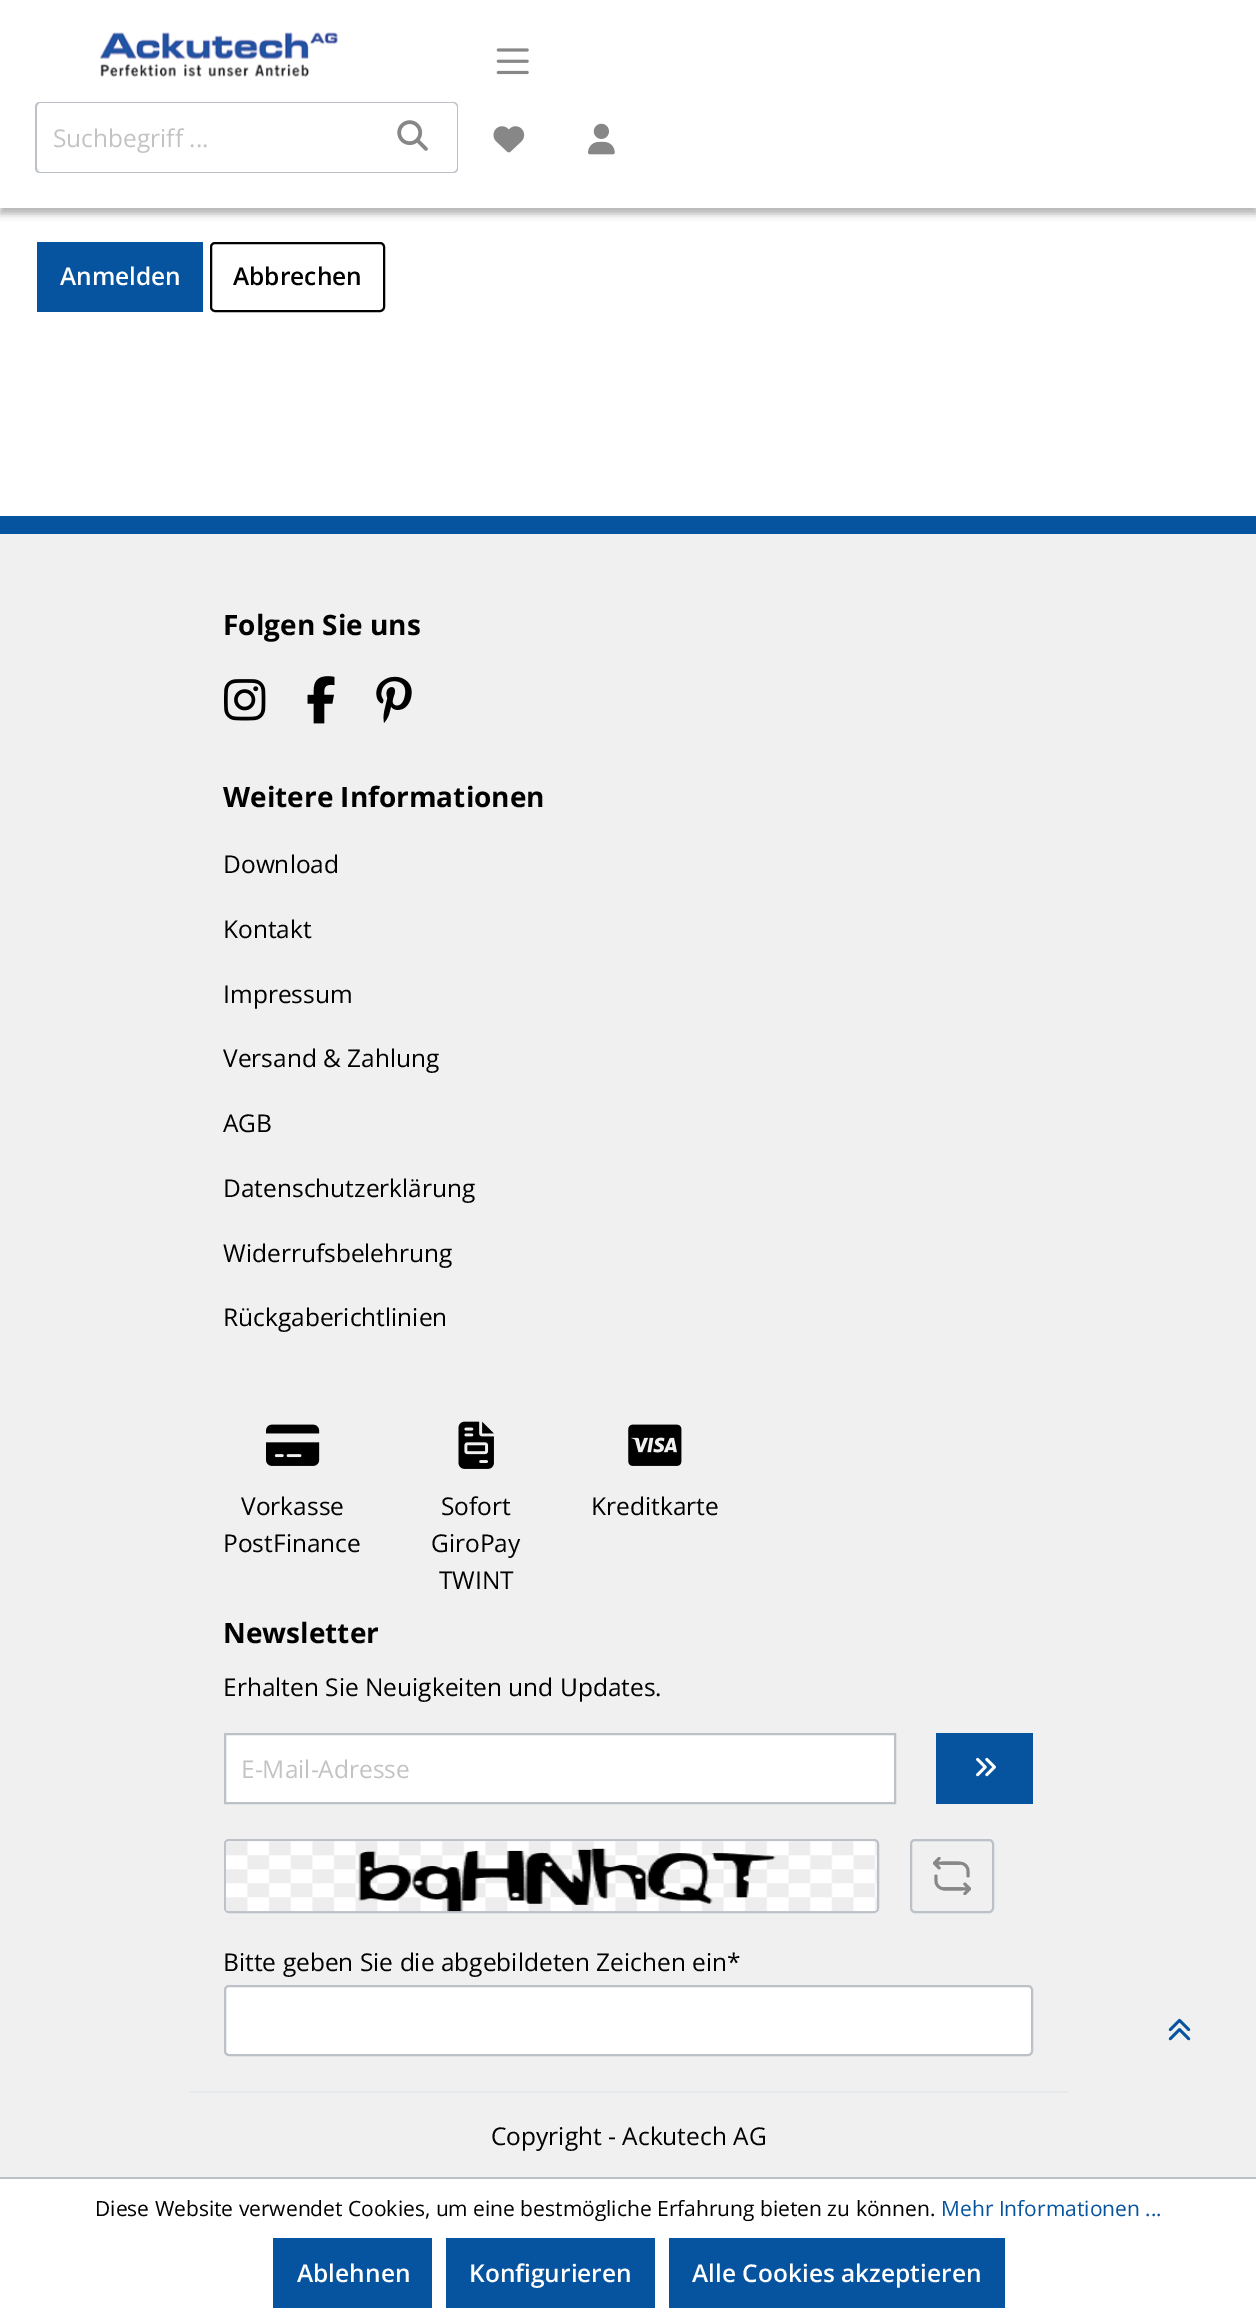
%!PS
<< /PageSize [1256 2322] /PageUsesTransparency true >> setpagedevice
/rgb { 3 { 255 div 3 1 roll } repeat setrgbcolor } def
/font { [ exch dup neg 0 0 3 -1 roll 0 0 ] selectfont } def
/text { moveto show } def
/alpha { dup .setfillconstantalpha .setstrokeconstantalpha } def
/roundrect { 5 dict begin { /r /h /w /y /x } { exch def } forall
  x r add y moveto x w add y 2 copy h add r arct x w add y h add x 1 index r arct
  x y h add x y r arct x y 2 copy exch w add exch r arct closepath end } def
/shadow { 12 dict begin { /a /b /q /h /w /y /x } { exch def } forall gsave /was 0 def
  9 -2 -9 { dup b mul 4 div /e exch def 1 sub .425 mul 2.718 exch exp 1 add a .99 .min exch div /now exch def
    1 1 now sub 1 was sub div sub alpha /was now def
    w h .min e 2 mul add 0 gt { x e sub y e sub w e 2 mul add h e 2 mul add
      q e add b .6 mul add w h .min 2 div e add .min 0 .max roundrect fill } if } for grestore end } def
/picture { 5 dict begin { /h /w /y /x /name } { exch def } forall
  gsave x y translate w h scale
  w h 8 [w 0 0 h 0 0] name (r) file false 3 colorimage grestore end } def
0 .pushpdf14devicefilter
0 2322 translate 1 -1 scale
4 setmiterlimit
255 255 255 rgb
0 0 1256 2322 rectfill
0 0 0 rgb
0 5 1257 209 0 3.5 0.28 shadow
255 255 255 rgb
0 0 1256 208 rectfill
(img_01.rgb) 100 32 238 45 picture
(img_02.rgb) 496 48 33 27 picture
188 193 199 rgb
40 102 moveto 338 0 rlineto 0 71 rlineto -338 0 rlineto -3 0 -5 -2 -5 -5 rcurveto 0 -61 rlineto 0 -3 2 -5 5 -5 rcurveto closepath 40 103 moveto 338 0 rlineto 0 69 rlineto -338 0 rlineto -2 0 -3 -2 -3 -4 rcurveto 0 -61 rlineto 0 -2 1 -4 3 -4 rcurveto closepath eofill
255 255 255 rgb
376 102 moveto 78 0 rlineto 3 0 5 2 5 5 rcurveto 0 61 rlineto 0 3 -2 5 -5 5 rcurveto -78 0 rlineto closepath fill
188 193 199 rgb
376 102 moveto 77 0 rlineto 3 0 5 2 5 5 rcurveto 0 61 rlineto 0 3 -2 5 -5 5 rcurveto -77 0 rlineto closepath 376 103 moveto 77 0 rlineto 2 0 4 2 4 4 rcurveto 0 61 rlineto 0 2 -2 4 -4 4 rcurveto -77 0 rlineto closepath eofill
(img_03.rgb) 397 120 31 31 picture
(img_04.rgb) 493 126 32 27 picture
(img_05.rgb) 588 123 27 32 picture
6 84 159 rgb
37 242 166 70 rectfill
0 0 0 rgb
2 setlinewidth
211 243 173 68 4 roundrect stroke
240 240 240 rgb
0 534 1256 1643 rectfill
6 84 159 rgb
0 516 1256 18 rectfill
230 233 235 rgb
189 2091 879 2 rectfill
(img_06.rgb) 224 679 42 42 picture
(img_07.rgb) 307 676 28 48 picture
(img_08.rgb) 376 676 36 47 picture
(img_09.rgb) 266 1424 54 42 picture
(img_10.rgb) 458 1421 36 48 picture
(img_11.rgb) 628 1424 54 42 picture
255 255 255 rgb
225 1734 moveto 670 0 rlineto 0 69 rlineto -670 0 rlineto closepath gsave fill grestore
188 193 199 rgb
stroke
6 84 159 rgb
936 1733 97 71 rectfill
(img_12.rgb) 976 1757 20 20 picture
188 193 199 rgb
225 1840 653 72 4 roundrect stroke
(img_13.rgb) 225 1841 652 71 picture
911 1840 82 72 4 roundrect stroke
(img_14.rgb) 933 1857 38 38 picture
255 255 255 rgb
225 1986 807 69 4 roundrect gsave fill grestore
188 193 199 rgb
stroke
(img_15.rgb) 1168 2018 23 23 picture
0 2177 1256 2 rectfill
6 84 159 rgb
273 2238 159 70 rectfill
446 2238 209 70 rectfill
669 2238 336 70 rectfill
/OpenSans-Regular 24.5 font
195 195 195 rgb
(Suchbegriff ...) 53 147 text
/OpenSans-SemiBold 24.5 font
255 255 255 rgb
(Anmelden) 60 285 text
0 0 0 rgb
(Abbrechen) 233 285 text
/OpenSans-Bold 28 font
(Folgen Sie uns) 223 635 text
(Weitere Informationen) 223 807 text
/OpenSans-Regular 24.5 font
(Download) 223 873 text
(Kontakt) 223 938 text
(Impressum) 223 1003 text
(Versand & Zahlung) 223 1067 text
(AGB) 223 1132 text
(Datenschutzerklärung) 223 1197 text
(Widerrufsbelehrung) 223 1262 text
(Rückgaberichtlinien) 223 1326 text
(Vorkasse) 241 1515 text
(PostFinance) 223 1552 text
(Sofort) 441 1515 text
(GiroPay) 431 1552 text
(TWINT) 439 1589 text
(Kreditkarte) 591 1515 text
/OpenSans-Bold 28 font
(Newsletter) 223 1643 text
/OpenSans-Regular 24.5 font
(Erhalten Sie Neuigkeiten und Updates.) 223 1696 text
195 195 195 rgb
(E-Mail-Adresse) 241 1778 text
0 0 0 rgb
(Bitte geben Sie die abgebildeten Zeichen ein*) 223 1971 text
(Copyright - Ackutech AG) 491 2145 text
/OpenSans-Regular 21 font
(Diese Website verwendet Cookies, um eine bestmögliche Erfahrung bieten zu können.) 95 2216 text
6 84 159 rgb
(Mehr Informationen ...) 941 2216 text
/OpenSans-SemiBold 24.5 font
255 255 255 rgb
(Ablehnen) 297 2282 text
(Konfigurieren) 469 2282 text
(Alle Cookies akzeptieren) 692 2282 text
.poppdf14devicefilter showpage
